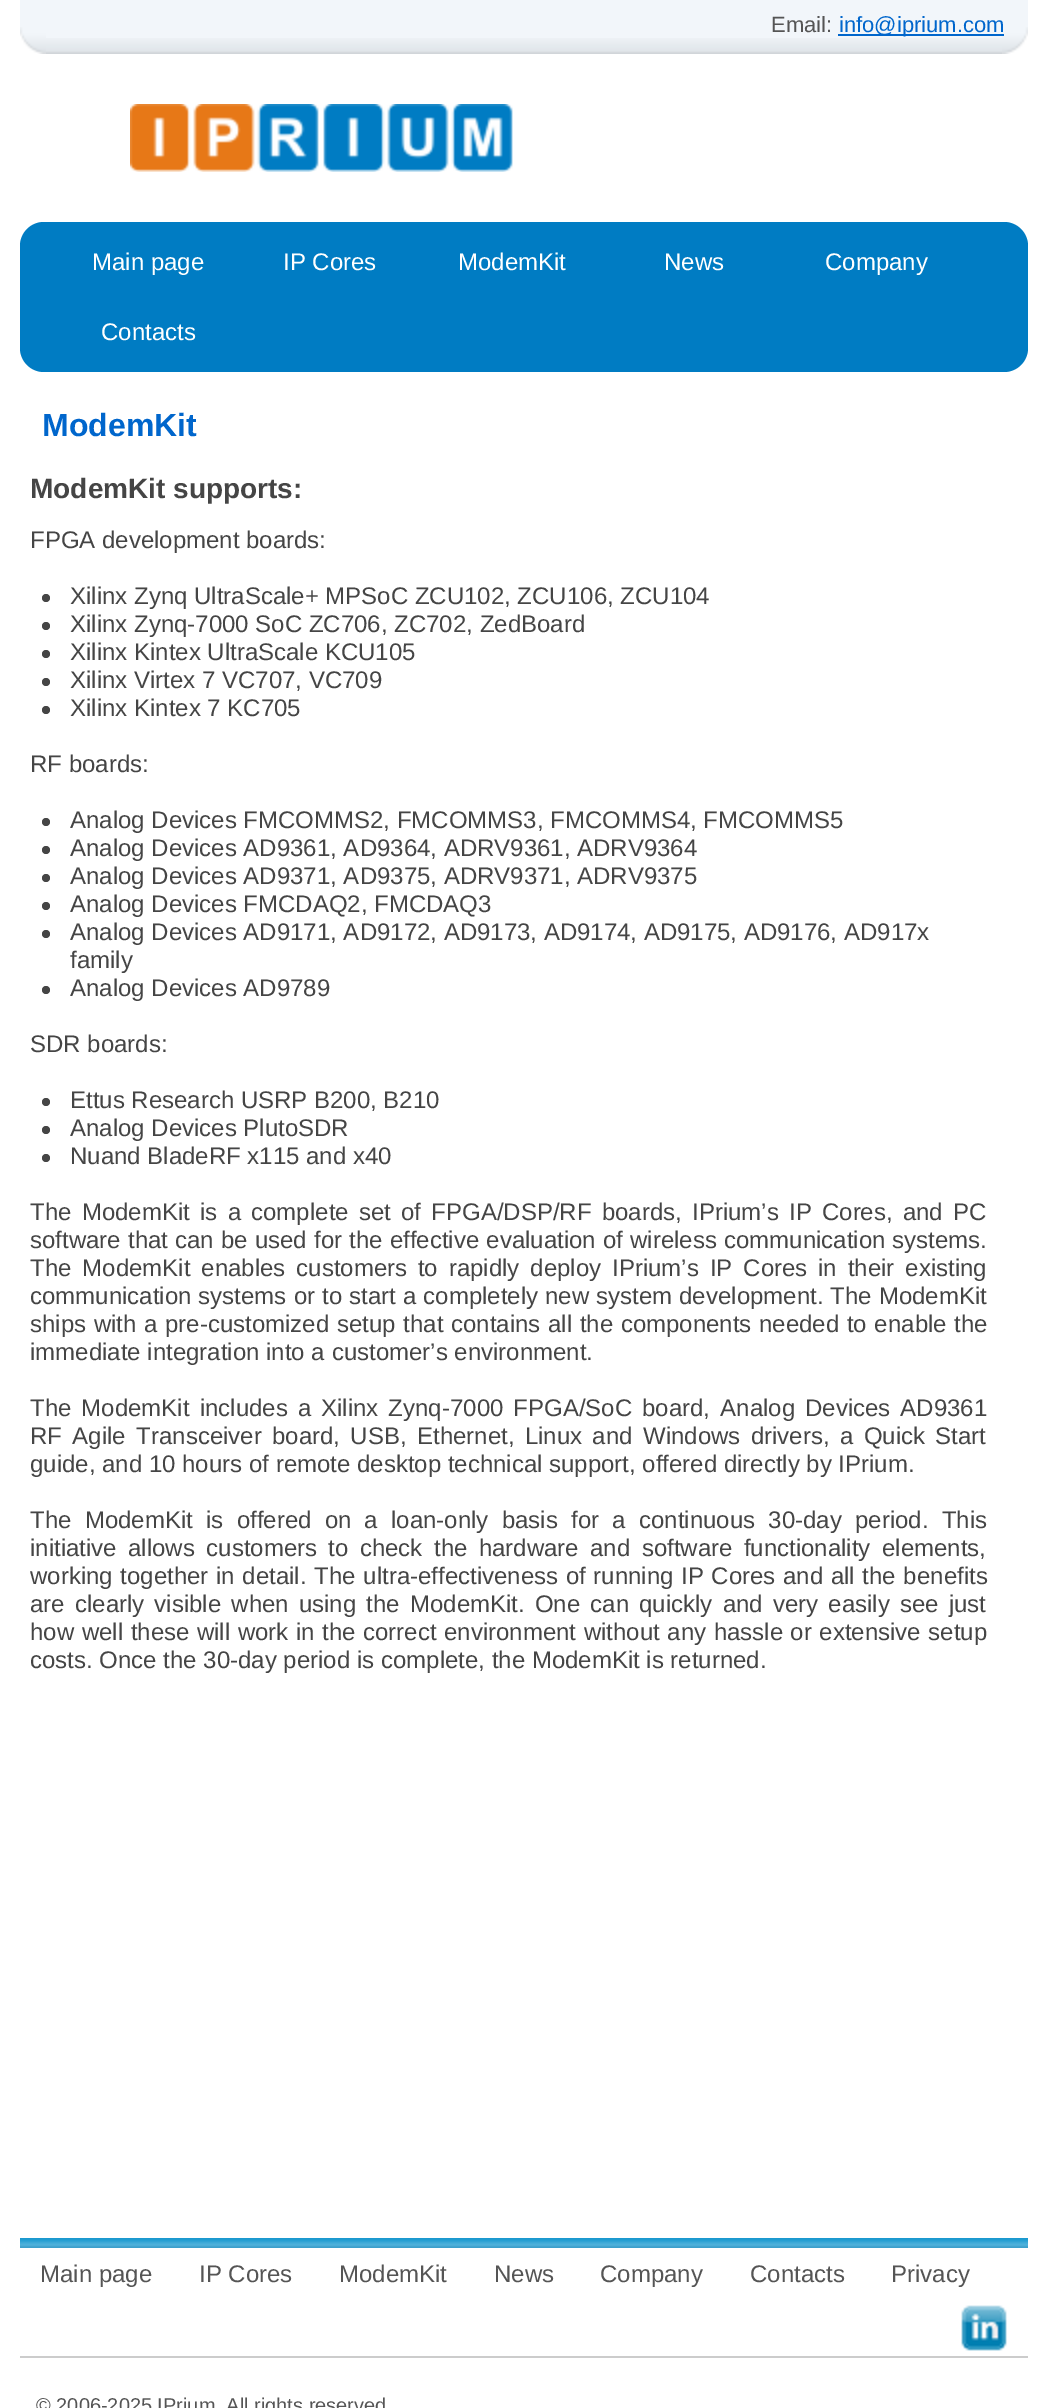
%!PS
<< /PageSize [1047 2408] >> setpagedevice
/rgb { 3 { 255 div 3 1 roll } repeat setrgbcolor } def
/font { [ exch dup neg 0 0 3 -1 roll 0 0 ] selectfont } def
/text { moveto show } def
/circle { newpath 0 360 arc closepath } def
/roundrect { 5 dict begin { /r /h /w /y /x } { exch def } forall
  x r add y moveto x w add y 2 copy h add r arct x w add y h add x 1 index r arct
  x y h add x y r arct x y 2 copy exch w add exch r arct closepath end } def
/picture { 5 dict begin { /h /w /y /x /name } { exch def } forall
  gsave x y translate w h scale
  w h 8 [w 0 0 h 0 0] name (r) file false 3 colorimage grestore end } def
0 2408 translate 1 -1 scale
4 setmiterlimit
255 255 255 rgb
0 0 1047 2408 rectfill
242 246 250 rgb
20 0 1008 38 rectfill
(img_01.rgb) 46 38 956 16 picture
(img_02.rgb) 20 27 26 27 picture
(img_03.rgb) 1002 27 26 27 picture
0 102 204 rgb
838 34 166 2 rectfill
(img_04.rgb) 130 104 383 68 picture
0 124 195 rgb
20 222 1008 150 24 roundrect fill
69 69 69 rgb
46 598 4 circle fill
46 626 4 circle fill
46 654 4 circle fill
46 682 4 circle fill
46 710 4 circle fill
46 822 4 circle fill
46 850 4 circle fill
46 878 4 circle fill
46 906 4 circle fill
46 934 4 circle fill
46 990 4 circle fill
46 1102 4 circle fill
46 1130 4 circle fill
46 1158 4 circle fill
(img_05.rgb) 20 2238 1008 10 picture
(img_06.rgb) 961 2305 46 46 picture
204 204 204 rgb
20 2356 1008 2 rectfill
/LiberationSans-Regular 22 font
85 85 85 rgb
(Email:) 771 32 text
0 102 204 rgb
(info@iprium.com) 839 32 text
/LiberationSans-Regular 24 font
255 255 255 rgb
(Main page) 92 270 text
(IP Cores) 283 270 text
(ModemKit) 458 270 text
(News) 664 270 text
(Company) 825 270 text
(Contacts) 101 340 text
/LiberationSans-Bold 32 font
0 102 204 rgb
(ModemKit) 42 436 text
/LiberationSans-Bold 28 font
69 69 69 rgb
(ModemKit supports:) 30 498 text
/LiberationSans-Regular 24 font
(FPGA development boards:) 30 548 text
(Xilinx Zynq UltraScale+ MPSoC ZCU102, ZCU106, ZCU104) 70 604 text
(Xilinx Zynq-7000 SoC ZC706, ZC702, ZedBoard) 70 632 text
(Xilinx Kintex UltraScale KCU105) 70 660 text
(Xilinx Virtex 7 VC707, VC709) 70 688 text
(Xilinx Kintex 7 KC705) 70 716 text
(RF boards:) 30 772 text
(Analog Devices FMCOMMS2, FMCOMMS3, FMCOMMS4, FMCOMMS5) 70 828 text
(Analog Devices AD9361, AD9364, ADRV9361, ADRV9364) 70 856 text
(Analog Devices AD9371, AD9375, ADRV9371, ADRV9375) 70 884 text
(Analog Devices FMCDAQ2, FMCDAQ3) 70 912 text
(Analog Devices AD9171, AD9172, AD9173, AD9174, AD9175, AD9176, AD917x) 70 940 text
(family) 70 968 text
(Analog Devices AD9789) 70 996 text
(SDR boards:) 30 1052 text
(Ettus Research USRP B200, B210) 70 1108 text
(Analog Devices PlutoSDR) 70 1136 text
(Nuand BladeRF x115 and x40) 70 1164 text
30 1220 moveto 3.6 0 32 (The ModemKit is a complete set of FPGA/DSP/RF boards, IPrium’s IP Cores, and PC) widthshow
30 1248 moveto 0.5 0 32 (software that can be used for the effective evaluation of wireless communication systems.) widthshow
30 1276 moveto 4.25 0 32 (The ModemKit enables customers to rapidly deploy IPrium’s IP Cores in their existing) widthshow
30 1304 moveto 0.4 0 32 (communication systems or to start a completely new system development. The ModemKit) widthshow
30 1332 moveto 1 0 32 (ships with a pre-customized setup that contains all the components needed to enable the) widthshow
(immediate integration into a customer’s environment.) 30 1360 text
30 1416 moveto 3.4 0 32 (The ModemKit includes a Xilinx Zynq-7000 FPGA/SoC board, Analog Devices AD9361) widthshow
30 1444 moveto 3.75 0 32 (RF Agile Transceiver board, USB, Ethernet, Linux and Windows drivers, a Quick Start) widthshow
(guide, and 10 hours of remote desktop technical support, offered directly by IPrium.) 30 1472 text
30 1528 moveto 6.6 0 32 (The ModemKit is offered on a loan-only basis for a continuous 30-day period. This) widthshow
30 1556 moveto 4.75 0 32 (initiative allows customers to check the hardware and software functionality elements,) widthshow
30 1584 moveto 1 0 32 (working together in detail. The ultra-effectiveness of running IP Cores and all the benefits) widthshow
30 1612 moveto 3.5 0 32 (are clearly visible when using the ModemKit. One can quickly and very easily see just) widthshow
30 1640 moveto 0.9 0 32 (how well these will work in the correct environment without any hassle or extensive setup) widthshow
(costs. Once the 30-day period is complete, the ModemKit is returned.) 30 1668 text
85 85 85 rgb
(Main page) 40 2282 text
(IP Cores) 199 2282 text
(ModemKit) 339 2282 text
(News) 494 2282 text
(Company) 600 2282 text
(Contacts) 750 2282 text
(Privacy) 891 2282 text
/LiberationSans-Regular 20 font
(© 2006-2025 IPrium. All rights reserved) 36 2412 text
showpage
